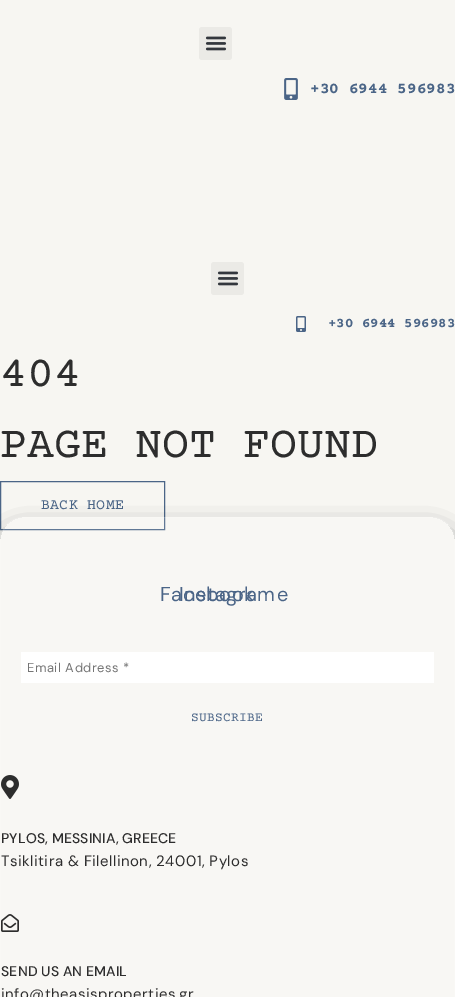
%!PS
<< /PageSize [455 997] /PageUsesTransparency true >> setpagedevice
/rgb { 3 { 255 div 3 1 roll } repeat setrgbcolor } def
/font { [ exch dup neg 0 0 3 -1 roll 0 0 ] selectfont } def
/text { moveto show } def
/alpha { dup .setfillconstantalpha .setstrokeconstantalpha } def
/roundrect { 5 dict begin { /r /h /w /y /x } { exch def } forall
  x r add y moveto x w add y 2 copy h add r arct x w add y h add x 1 index r arct
  x y h add x y r arct x y 2 copy exch w add exch r arct closepath end } def
/shadow { 12 dict begin { /a /b /q /h /w /y /x } { exch def } forall gsave /was 0 def
  9 -2 -9 { dup b mul 4 div /e exch def 1 sub .425 mul 2.718 exch exp 1 add a .99 .min exch div /now exch def
    1 1 now sub 1 was sub div sub alpha /was now def
    w h .min e 2 mul add 0 gt { x e sub y e sub w e 2 mul add h e 2 mul add
      q e add b .6 mul add w h .min 2 div e add .min 0 .max roundrect fill } if } for grestore end } def
/picture { 5 dict begin { /h /w /y /x /name } { exch def } forall
  gsave x y translate w h scale
  w h 8 [w 0 0 h 0 0] name (r) file false 3 colorimage grestore end } def
0 .pushpdf14devicefilter
0 997 translate 1 -1 scale
4 setmiterlimit
247 246 242 rgb
0 0 455 997 rectfill
235 234 230 rgb
199 27 33 33 3 roundrect fill
(img_01.rgb) 205 36 22 15 picture
(img_02.rgb) 284 78 14 22 picture
211 262 33 33 3 roundrect fill
(img_01.rgb) 217 271 22 15 picture
(img_03.rgb) 296 316 10 16 picture
75 101 135 rgb
0.5 481.5 164 48 rectstroke
gsave
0 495 moveto 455 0 rlineto 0 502 rlineto -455 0 rlineto closepath 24 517 moveto 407 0 rlineto 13.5 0 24 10.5 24 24 rcurveto 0 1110 rlineto 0 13.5 -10.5 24 -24 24 rcurveto -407 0 rlineto -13.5 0 -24 -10.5 -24 -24 rcurveto 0 -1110 rlineto 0 -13.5 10.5 -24 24 -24 rcurveto closepath eoclip newpath
0 0 0 rgb
-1 535 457 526 25 13 0.78 shadow
grestore
0.12 alpha
255 255 255 rgb
0 517 455 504 24 roundrect fill
0.5 517.5 454 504 23.5 roundrect stroke
1 alpha
21 652 413 31 rectfill
(img_04.rgb) 1 775 18 24 picture
(img_05.rgb) 1 914 18 18 picture
/CourierPrime-Bold 16 font
75 101 135 rgb
310 93 moveto 0.1 0 (+30 6944 596983) ashow
/CourierPrime-Bold 14 font
328 327 moveto 0.1 0 (+30 6944 596983) ashow
/CourierPrime-Regular 45 font
45 45 45 rgb
(404) 0 386 text
(PAGE NOT FOUND) 0 457 text
/CourierPrime-Regular 15 font
75 101 135 rgb
41 509 moveto 0.25 0 (BACK HOME) ashow
/DMSans-Regular 20 font
160 601 moveto 0.5 0 (Facebook) ashow
179 601 moveto 0.5 0 (Instagram) ashow
277 601 moveto 0.5 0 (e) ashow
/DMSans-Regular 13 font
117 117 117 rgb
27 672 moveto 0.5 0 (Email Address *) ashow
/CourierPrime-Regular 13 font
75 101 135 rgb
191 721 moveto 0.25 0 (SUBSCRIBE) ashow
/DMSans-Medium 14 font
45 45 45 rgb
1 843 moveto 0.15 0 (PYLOS, MESSINIA, GREECE) ashow
/DMSans-Regular 15 font
1 866 moveto 0.5 0 (Tsiklitira & Filellinon, 24001, Pylos) ashow
/DMSans-Medium 14 font
1 976 moveto 0.15 0 (SEND US AN EMAIL) ashow
/DMSans-Regular 15 font
1 999 moveto 0.5 0 (info@theasisproperties.gr) ashow
.poppdf14devicefilter showpage
